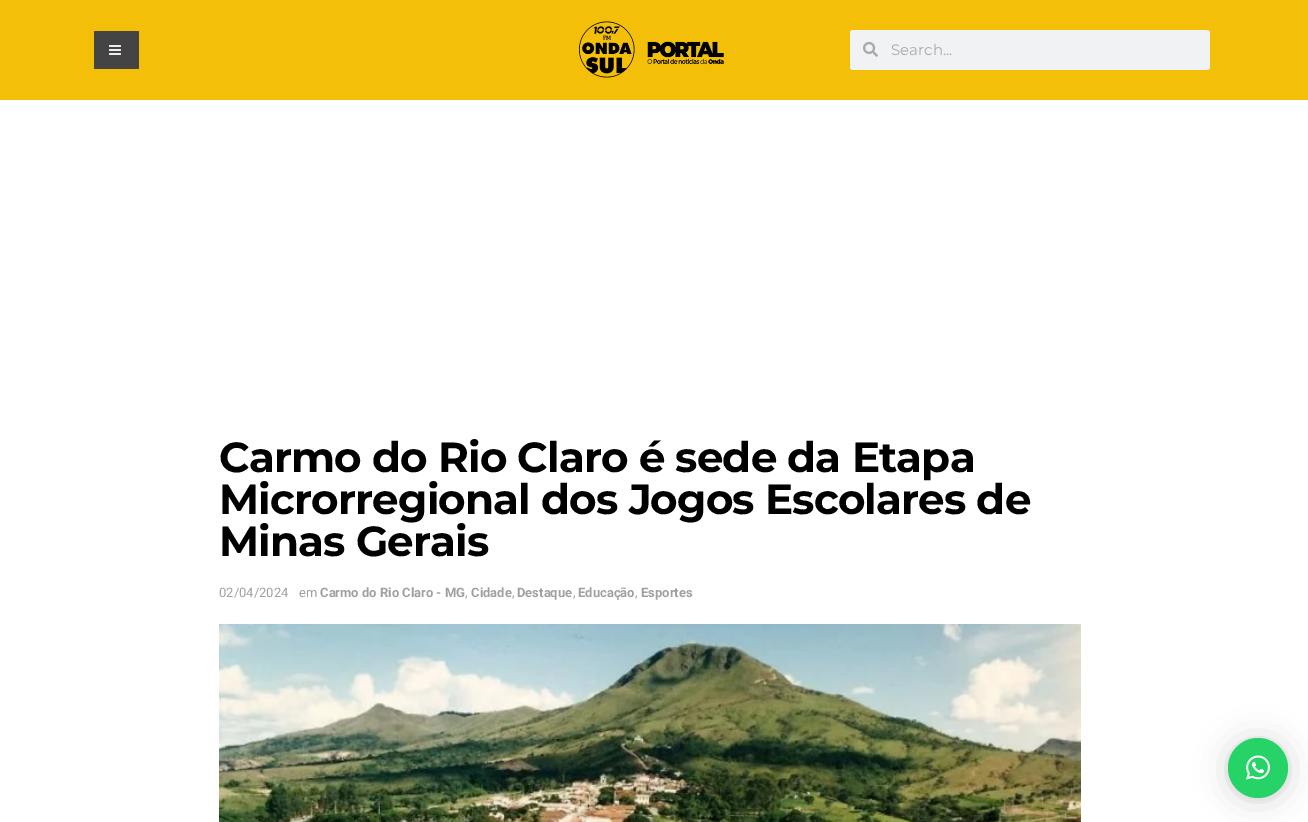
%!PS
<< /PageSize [1308 822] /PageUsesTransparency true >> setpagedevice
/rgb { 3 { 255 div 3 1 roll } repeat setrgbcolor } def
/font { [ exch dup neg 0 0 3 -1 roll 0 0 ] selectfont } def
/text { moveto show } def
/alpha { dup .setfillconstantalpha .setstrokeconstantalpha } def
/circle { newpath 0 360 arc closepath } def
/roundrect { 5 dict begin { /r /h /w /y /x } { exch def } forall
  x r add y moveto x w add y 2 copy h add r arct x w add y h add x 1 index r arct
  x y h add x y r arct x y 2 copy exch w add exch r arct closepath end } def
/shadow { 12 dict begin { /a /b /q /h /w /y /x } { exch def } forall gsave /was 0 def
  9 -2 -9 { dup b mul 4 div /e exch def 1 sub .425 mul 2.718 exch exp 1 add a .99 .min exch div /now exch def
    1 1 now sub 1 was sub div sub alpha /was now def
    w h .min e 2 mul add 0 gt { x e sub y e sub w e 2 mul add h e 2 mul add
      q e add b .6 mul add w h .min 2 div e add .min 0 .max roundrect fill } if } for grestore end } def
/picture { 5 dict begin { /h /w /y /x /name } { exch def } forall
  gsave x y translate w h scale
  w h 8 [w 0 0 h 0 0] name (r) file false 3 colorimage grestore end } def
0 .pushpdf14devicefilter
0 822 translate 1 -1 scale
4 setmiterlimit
255 255 255 rgb
0 0 1308 822 rectfill
243 191 9 rgb
0 0 1308 100 rectfill
68 68 68 rgb
94 31 45 38 rectfill
(img_01.rgb) 109 45 12 10 picture
(img_02.rgb) 579 21 145 57 picture
241 242 243 rgb
850 30 360 40 3 roundrect fill
(img_03.rgb) 863 41 15 16 picture
(img_04.rgb) 219 624 862 198 picture
0 0 0 rgb
1228 740 60 60 30 16 0.16 shadow
1228 739 60 60 30 3 0.06 shadow
37 211 102 rgb
1258 768 30 circle fill
(img_05.rgb) 1246 755 24 25 picture
/Montserrat-Regular 15 font
170 170 170 rgb
(Search...) 891 55 text
/Montserrat-Bold 42 font
0 0 0 rgb
219 472 moveto -0.85 0 (Carmo do Rio Claro é sede da Etapa) ashow
219 514 moveto -0.85 0 (Microrregional dos Jogos Escolares de) ashow
219 556 moveto -0.85 0 (Minas Gerais) ashow
/Roboto-Regular 13 font
160 160 160 rgb
(02/04/2024) 219 597 text
(em) 299 597 text
/Roboto-Bold 13 font
(Carmo do Rio Claro - MG) 320 597 text
/Roboto-Regular 13 font
(,) 465 597 text
/Roboto-Bold 13 font
(Cidade) 471 597 text
/Roboto-Regular 13 font
(,) 512 597 text
/Roboto-Bold 13 font
(Destaque) 517 597 text
/Roboto-Regular 13 font
(,) 573 597 text
/Roboto-Bold 13 font
(Educação) 578 597 text
/Roboto-Regular 13 font
(,) 635 597 text
/Roboto-Bold 13 font
(Esportes) 641 597 text
.poppdf14devicefilter showpage
